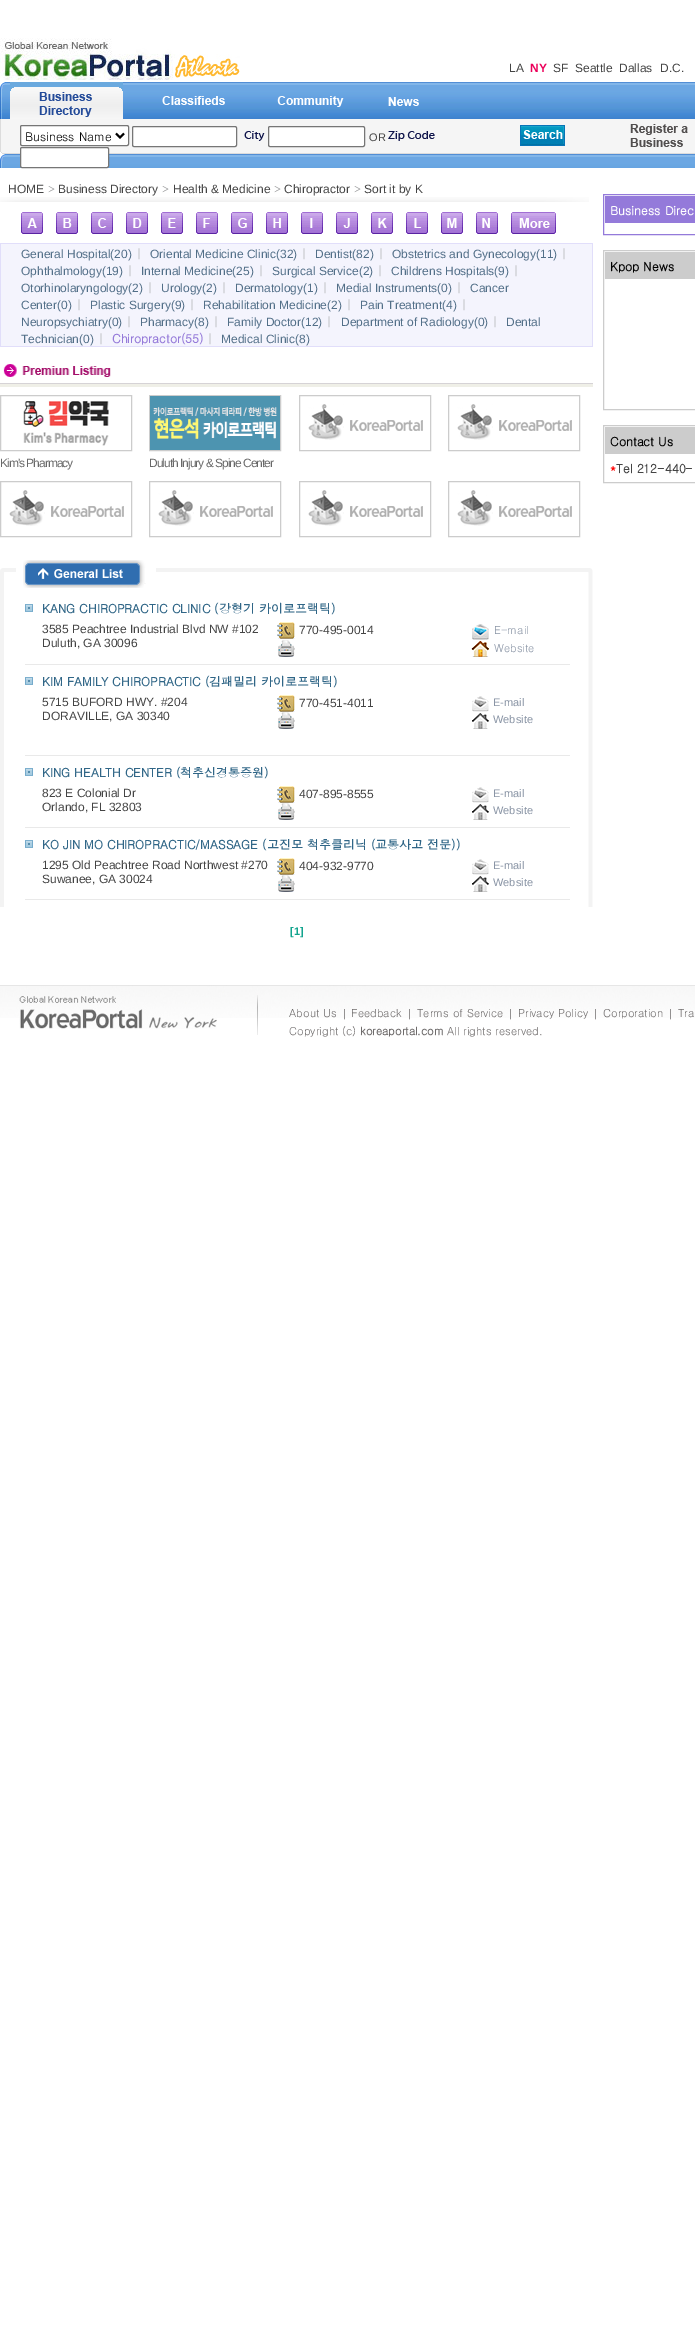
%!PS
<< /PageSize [695 2341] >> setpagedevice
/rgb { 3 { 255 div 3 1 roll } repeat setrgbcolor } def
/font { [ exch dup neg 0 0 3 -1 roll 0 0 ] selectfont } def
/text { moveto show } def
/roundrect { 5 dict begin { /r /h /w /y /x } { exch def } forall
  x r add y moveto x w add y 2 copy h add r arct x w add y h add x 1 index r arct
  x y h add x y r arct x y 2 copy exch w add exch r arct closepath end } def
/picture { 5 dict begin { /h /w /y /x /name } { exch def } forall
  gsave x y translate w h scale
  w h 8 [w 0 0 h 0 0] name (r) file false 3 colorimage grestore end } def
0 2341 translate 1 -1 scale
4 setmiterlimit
255 255 255 rgb
0 0 695 2341 rectfill
(img_01.rgb) 0 38 240 42 picture
(img_02.rgb) 0 82 10 86 picture
(img_03.rgb) 10 82 685 86 picture
(img_04.rgb) 10 82 113 37 picture
(img_05.rgb) 162 96 63 9 picture
(img_06.rgb) 277 96 67 11 picture
(img_07.rgb) 388 97 32 9 picture
20.5 125.5 108 20 1.5 roundrect gsave fill grestore
118 118 118 rgb
stroke
0 0 0 rgb
2 setlinewidth
116 133.5 moveto 4 4 rlineto 4 -4 rlineto stroke
255 255 255 rgb
132.5 126.5 104 20 1.5 roundrect gsave fill grestore
118 118 118 rgb
1 setlinewidth
stroke
(img_08.rgb) 244 131 21 10 picture
255 255 255 rgb
268.5 126.5 96 20 1.5 roundrect gsave fill grestore
118 118 118 rgb
stroke
(img_09.rgb) 388 131 47 10 picture
255 255 255 rgb
20.5 147.5 88 20 1.5 roundrect gsave fill grestore
118 118 118 rgb
stroke
(img_10.rgb) 520 125 45 21 picture
(img_11.rgb) 630 124 58 23 picture
(img_12.rgb) 0 197 589 5 picture
(img_13.rgb) 21 212 22 22 picture
(img_14.rgb) 56 212 22 22 picture
(img_15.rgb) 91 212 22 22 picture
(img_16.rgb) 126 212 22 22 picture
(img_17.rgb) 161 212 22 22 picture
(img_18.rgb) 196 212 22 22 picture
(img_19.rgb) 231 212 22 22 picture
(img_20.rgb) 266 212 22 22 picture
(img_21.rgb) 301 212 22 22 picture
(img_22.rgb) 336 212 22 22 picture
(img_23.rgb) 371 212 22 22 picture
(img_24.rgb) 406 212 22 22 picture
(img_25.rgb) 441 212 22 22 picture
(img_26.rgb) 476 212 22 22 picture
(img_27.rgb) 511 212 45 22 picture
225 222 250 rgb
0 243 593 104 rectfill
244 244 253 rgb
1 244 591 102 rectfill
(img_28.rgb) 3 364 108 13 picture
214 211 214 rgb
0 383 593 1 rectfill
239 239 231 rgb
0 384 593 3 rectfill
204 204 204 rgb
0.5 395.5 131 55 rectstroke
(img_29.rgb) 23 400 86 46 picture
149.5 395.5 131 55 rectstroke
(img_30.rgb) 150 396 130 54 picture
299.5 395.5 131 55 rectstroke
(img_31.rgb) 308 404 115 36 picture
448.5 395.5 131 55 rectstroke
(img_31.rgb) 457 404 115 36 picture
0.5 481.5 131 55 rectstroke
(img_31.rgb) 9 490 115 36 picture
149.5 481.5 131 55 rectstroke
(img_31.rgb) 158 490 115 36 picture
299.5 481.5 131 55 rectstroke
(img_31.rgb) 308 490 115 36 picture
448.5 481.5 131 55 rectstroke
(img_31.rgb) 457 490 115 36 picture
(img_32.rgb) 0 568 593 26 picture
(img_33.rgb) 16 560 130 28 picture
(img_34.rgb) 0 594 593 5 picture
(img_35.rgb) 0 599 593 73 picture
(img_36.rgb) 25 604 8 8 picture
(img_37.rgb) 277 622 18 17 picture
(img_38.rgb) 472 624 17 16 picture
(img_39.rgb) 278 640 17 17 picture
(img_40.rgb) 471 641 18 16 picture
233 233 233 rgb
25 664 545 1 rectfill
(img_41.rgb) 0 672 593 91 picture
(img_36.rgb) 25 677 8 8 picture
(img_37.rgb) 277 695 18 17 picture
(img_42.rgb) 472 696 17 16 picture
(img_39.rgb) 278 712 17 17 picture
(img_43.rgb) 472 713 17 16 picture
25 755 545 1 rectfill
(img_44.rgb) 0 763 593 72 picture
(img_36.rgb) 25 768 8 8 picture
(img_37.rgb) 277 786 18 17 picture
(img_42.rgb) 472 787 17 16 picture
(img_39.rgb) 278 803 17 17 picture
(img_43.rgb) 472 804 17 16 picture
25 827 545 1 rectfill
(img_44.rgb) 0 835 593 72 picture
(img_36.rgb) 25 840 8 8 picture
(img_37.rgb) 277 858 18 17 picture
(img_42.rgb) 472 859 17 16 picture
(img_39.rgb) 278 875 17 17 picture
(img_43.rgb) 472 876 17 16 picture
25 899 545 1 rectfill
148 122 218 rgb
603.5 194.5 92 40 rectstroke
605 196 90 27 rectfill
204 204 204 rgb
603.5 250.5 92 159 rectstroke
605 252 90 27 rectfill
603.5 425.5 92 57 rectstroke
605 427 90 27 rectfill
(img_45.rgb) 0 985 695 33 picture
(img_46.rgb) 19 996 198 33 picture
(img_47.rgb) 257 995 1 40 picture
/LiberationSans-Regular 12 font
68 68 68 rgb
(LA) 509 72 text
/LiberationSans-Bold 12 font
236 0 90 rgb
(NY) 530 72 text
/LiberationSans-Regular 12 font
68 68 68 rgb
(SF) 553 72 text
(Seattle) 575 72 text
(Dallas) 619 72 text
(D.C.) 660 72 text
/Dotum-Regular 12 font
0 0 0 rgb
(Business Name) 25 141 text
/LiberationSans-Regular 11 font
68 68 68 rgb
(OR) 369 141 text
/LiberationSans-Regular 12 font
(HOME) 8 193 text
/Dotum-Regular 11 font
149 150 151 rgb
(>) 48 193 text
/LiberationSans-Regular 12 font
68 68 68 rgb
(Business Directory) 58 193 text
/Dotum-Regular 11 font
149 150 151 rgb
(>) 162 193 text
/LiberationSans-Regular 12 font
68 68 68 rgb
(Health & Medicine) 173 193 text
/Dotum-Regular 11 font
149 150 151 rgb
(>) 274 193 text
/LiberationSans-Regular 12 font
68 68 68 rgb
(Chiropractor) 284 193 text
/Dotum-Regular 11 font
149 150 151 rgb
(>) 354 193 text
/LiberationSans-Regular 12 font
68 68 68 rgb
(Sort it by K) 364 193 text
82 111 136 rgb
(General Hospital\(20\)) 21 258 text
/Dotum-Regular 12 font
149 150 151 rgb
(|) 136 258 text
/LiberationSans-Regular 12 font
82 111 136 rgb
(Oriental Medicine Clinic\(32\)) 150 258 text
/Dotum-Regular 12 font
149 150 151 rgb
(|) 301 258 text
/LiberationSans-Regular 12 font
82 111 136 rgb
(Dentist\(82\)) 315 258 text
/Dotum-Regular 12 font
149 150 151 rgb
(|) 378 258 text
/LiberationSans-Regular 12 font
82 111 136 rgb
(Obstetrics and Gynecology\(11\)) 392 258 text
/Dotum-Regular 12 font
149 150 151 rgb
(|) 561 258 text
/LiberationSans-Regular 12 font
82 111 136 rgb
(Ophthalmology\(19\)) 21 275 text
/Dotum-Regular 12 font
149 150 151 rgb
(|) 127 275 text
/LiberationSans-Regular 12 font
82 111 136 rgb
(Internal Medicine\(25\)) 141 275 text
/Dotum-Regular 12 font
149 150 151 rgb
(|) 258 275 text
/LiberationSans-Regular 12 font
82 111 136 rgb
(Surgical Service\(2\)) 272 275 text
/Dotum-Regular 12 font
149 150 151 rgb
(|) 377 275 text
/LiberationSans-Regular 12 font
82 111 136 rgb
(Childrens Hospitals\(9\)) 391 275 text
/Dotum-Regular 12 font
149 150 151 rgb
(|) 513 275 text
/LiberationSans-Regular 12 font
82 111 136 rgb
(Otorhinolaryngology\(2\)) 21 292 text
/Dotum-Regular 12 font
149 150 151 rgb
(|) 147 292 text
/LiberationSans-Regular 12 font
82 111 136 rgb
(Urology\(2\)) 161 292 text
/Dotum-Regular 12 font
149 150 151 rgb
(|) 221 292 text
/LiberationSans-Regular 12 font
82 111 136 rgb
(Dermatology\(1\)) 235 292 text
/Dotum-Regular 12 font
149 150 151 rgb
(|) 322 292 text
/LiberationSans-Regular 12 font
82 111 136 rgb
(Medial Instruments\(0\)) 336 292 text
/Dotum-Regular 12 font
149 150 151 rgb
(|) 456 292 text
/LiberationSans-Regular 12 font
82 111 136 rgb
(Cancer) 470 292 text
(Center\(0\)) 21 309 text
/Dotum-Regular 12 font
149 150 151 rgb
(|) 76 309 text
/LiberationSans-Regular 12 font
82 111 136 rgb
(Plastic Surgery\(9\)) 90 309 text
/Dotum-Regular 12 font
149 150 151 rgb
(|) 189 309 text
/LiberationSans-Regular 12 font
82 111 136 rgb
(Rehabilitation Medicine\(2\)) 203 309 text
/Dotum-Regular 12 font
149 150 151 rgb
(|) 346 309 text
/LiberationSans-Regular 12 font
82 111 136 rgb
(Pain Treatment\(4\)) 360 309 text
/Dotum-Regular 12 font
149 150 151 rgb
(|) 461 309 text
/LiberationSans-Regular 12 font
82 111 136 rgb
(Neuropsychiatry\(0\)) 21 326 text
/Dotum-Regular 12 font
149 150 151 rgb
(|) 126 326 text
/LiberationSans-Regular 12 font
82 111 136 rgb
(Pharmacy\(8\)) 140 326 text
/Dotum-Regular 12 font
149 150 151 rgb
(|) 213 326 text
/LiberationSans-Regular 12 font
82 111 136 rgb
(Family Doctor\(12\)) 227 326 text
/Dotum-Regular 12 font
149 150 151 rgb
(|) 326 326 text
/LiberationSans-Regular 12 font
82 111 136 rgb
(Department of Radiology\(0\)) 341 326 text
/Dotum-Regular 12 font
149 150 151 rgb
(|) 492 326 text
/LiberationSans-Regular 12 font
82 111 136 rgb
(Dental) 506 326 text
(Technician\(0\)) 21 343 text
/Dotum-Regular 12 font
149 150 151 rgb
(|) 98 343 text
/Dotum-Bold 12 font
150 123 218 rgb
(Chiropractor\(55\)) 112 343 text
/Dotum-Regular 12 font
149 150 151 rgb
(|) 207 343 text
/LiberationSans-Regular 12 font
82 111 136 rgb
(Medical Clinic\(8\)) 221 343 text
104 104 104 rgb
0 467 moveto -1 0 (Kim's Pharmacy) ashow
149 467 moveto -1 0 (Duluth Injury & Spine Center) ashow
/Dotum-Bold 12 font
48 102 135 rgb
(KANG CHIROPRACTIC CLINIC \(강형기 카이로프랙틱\)) 42 613 text
/LiberationSans-Regular 12 font
68 68 68 rgb
(3585 Peachtree Industrial Blvd NW #102) 42 633 text
(Duluth, GA 30096) 42 647 text
(770-495-0014) 299 634 text
/Dotum-Regular 11 font
137 148 165 rgb
(E-mail) 494 634 text
(Website) 494 652 text
/Dotum-Bold 12 font
48 102 135 rgb
(KIM FAMILY CHIROPRACTIC \(김패밀리 카이로프랙틱\)) 42 686 text
/LiberationSans-Regular 12 font
68 68 68 rgb
(5715 BUFORD HWY. #204) 42 706 text
(DORAVILLE, GA 30340) 42 720 text
(770-451-4011) 299 707 text
/LiberationSans-Regular 11 font
137 148 165 rgb
(E-mail) 493 706 text
(Website) 493 723 text
/Dotum-Bold 12 font
48 102 135 rgb
(KING HEALTH CENTER \(척추신경통증원\)) 42 777 text
/LiberationSans-Regular 12 font
68 68 68 rgb
(823 E Colonial Dr) 42 797 text
(Orlando, FL 32803) 42 811 text
(407-895-8555) 299 798 text
/LiberationSans-Regular 11 font
137 148 165 rgb
(E-mail) 493 797 text
(Website) 493 814 text
/Dotum-Bold 12 font
48 102 135 rgb
(KO JIN MO CHIROPRACTIC/MASSAGE \(고진모 척추클리닉 \(교통사고 전문\)\)) 42 849 text
/LiberationSans-Regular 12 font
68 68 68 rgb
(1295 Old Peachtree Road Northwest #270) 42 869 text
(Suwanee, GA 30024) 42 883 text
(404-932-9770) 299 870 text
/LiberationSans-Regular 11 font
137 148 165 rgb
(E-mail) 493 869 text
(Website) 493 886 text
/LiberationSans-Bold 11 font
18 164 142 rgb
([1]) 290 935 text
/Gulim-Bold 12 font
255 255 255 rgb
(Business Direc) 610 215 text
0 0 0 rgb
(Kpop News) 610 271 text
(Contact Us) 610 446 text
255 0 0 rgb
(*) 610 473 text
68 68 68 rgb
(Tel 212-440-) 616 473 text
/Dotum-Regular 11 font
110 107 107 rgb
(About Us) 289 1017 text
/LiberationSans-Regular 11 font
(|) 343 1017 text
/Dotum-Regular 11 font
(Feedback) 351 1017 text
/LiberationSans-Regular 11 font
(|) 408 1017 text
/Dotum-Regular 11 font
(Terms of Service) 417 1017 text
/LiberationSans-Regular 11 font
(|) 509 1017 text
/Dotum-Regular 11 font
(Privacy Policy) 518 1017 text
/LiberationSans-Regular 11 font
(|) 594 1017 text
/Dotum-Regular 11 font
(Corporation) 603 1017 text
/LiberationSans-Regular 11 font
(|) 669 1017 text
/Dotum-Regular 11 font
(Tra) 678 1017 text
/Gulim-Regular 11 font
(Copyright \(c\)) 289 1035 text
/Gulim-Bold 11 font
(koreaportal.com) 360 1035 text
/Gulim-Regular 11 font
(All rights reserved.) 447 1035 text
showpage
